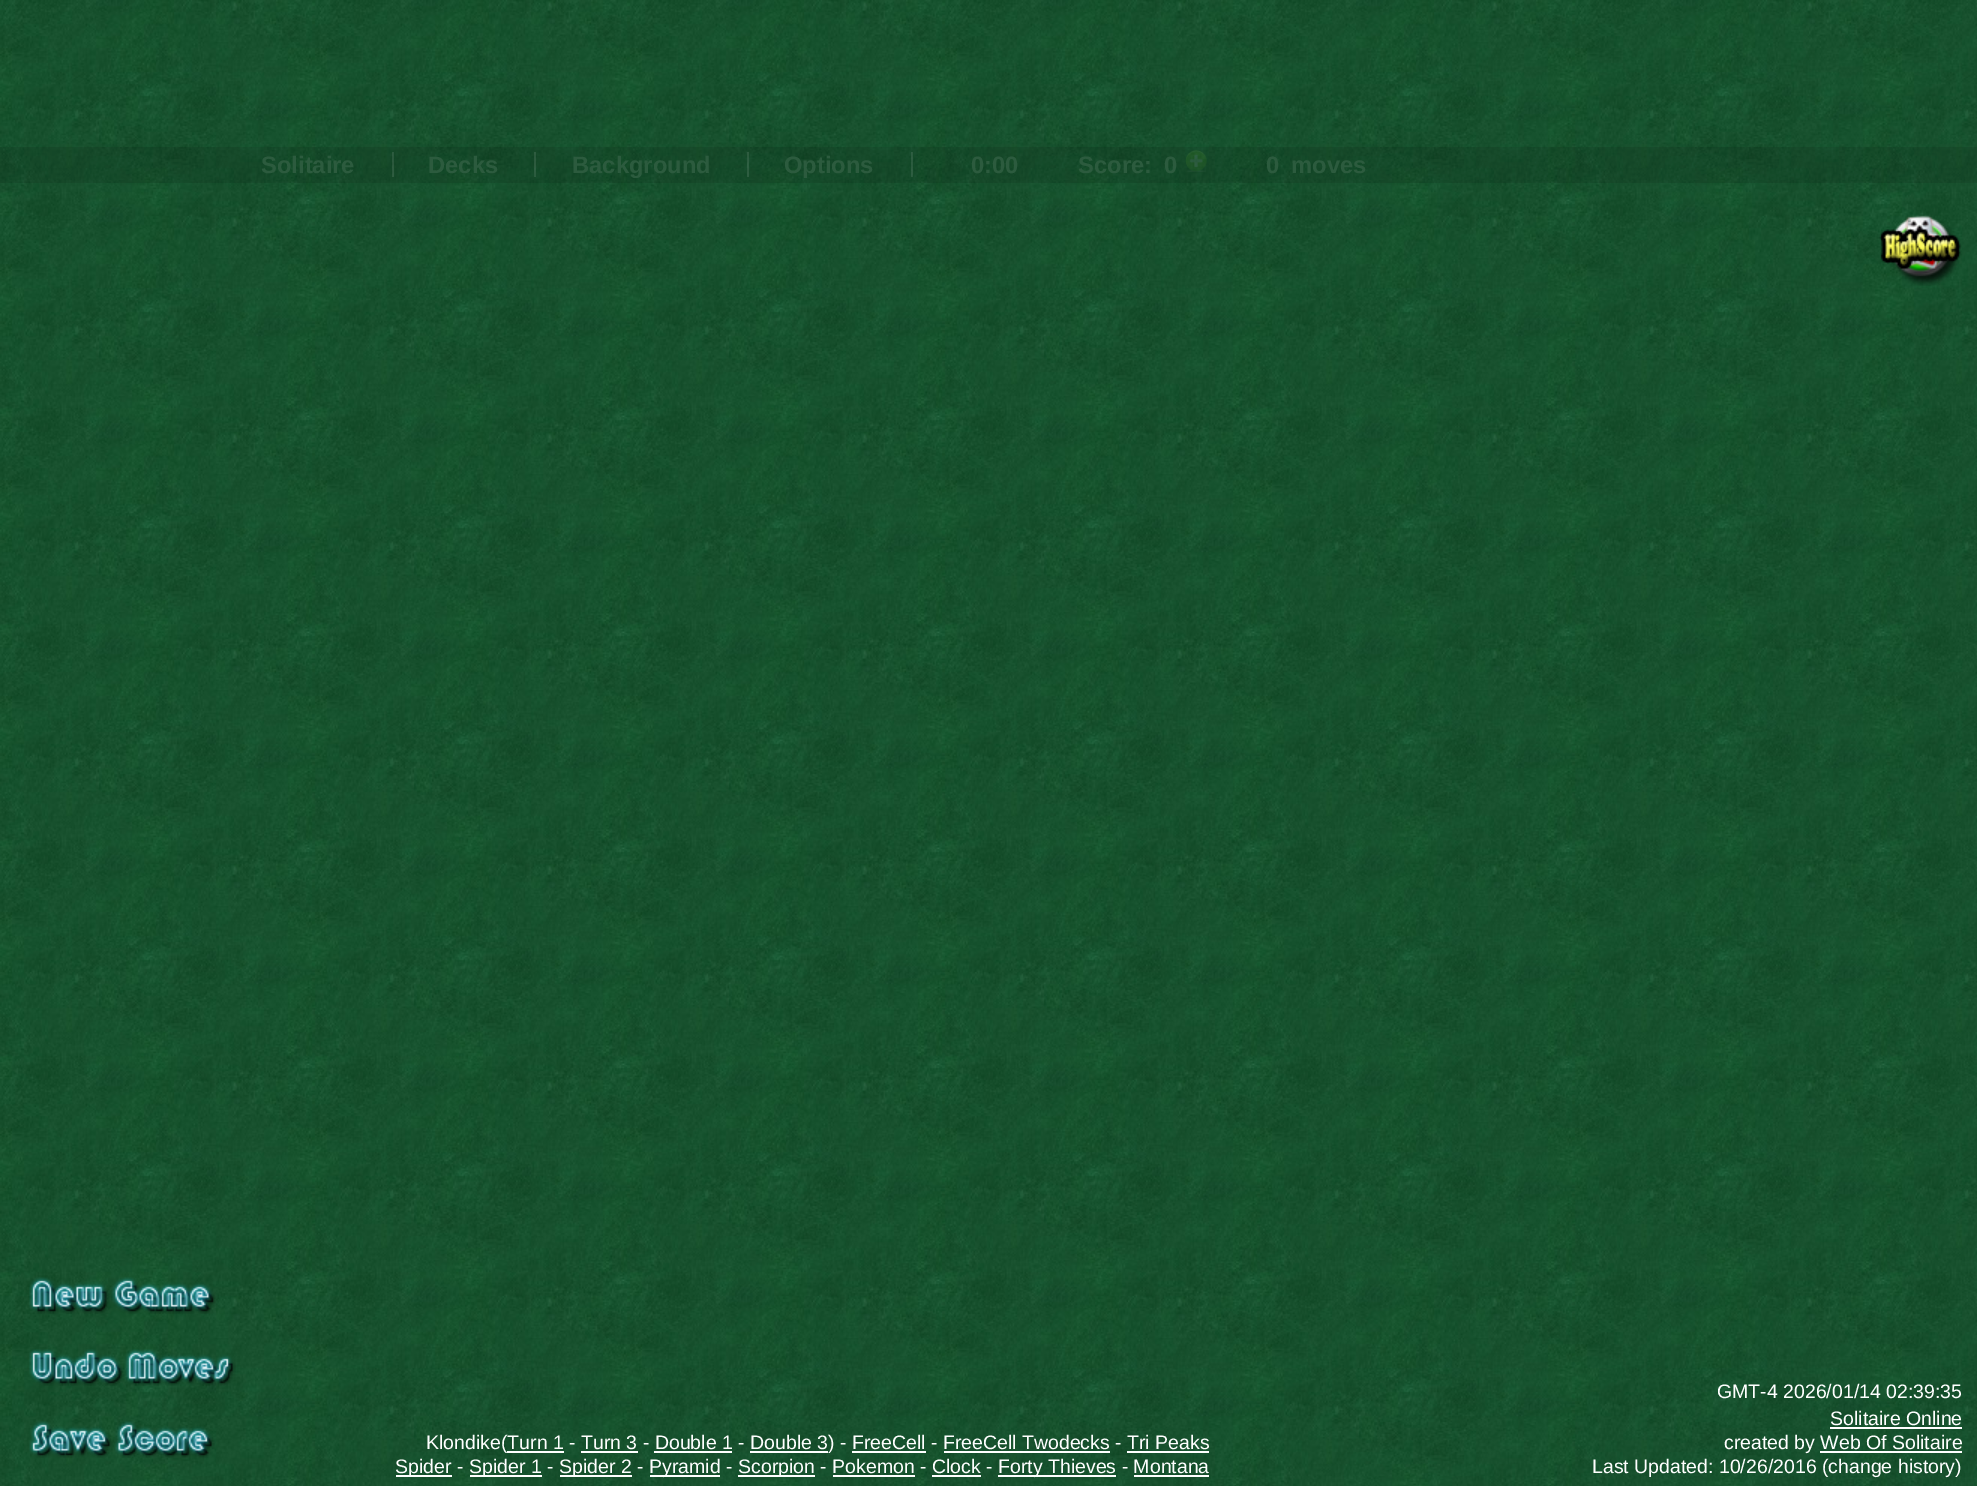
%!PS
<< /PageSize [1977 1486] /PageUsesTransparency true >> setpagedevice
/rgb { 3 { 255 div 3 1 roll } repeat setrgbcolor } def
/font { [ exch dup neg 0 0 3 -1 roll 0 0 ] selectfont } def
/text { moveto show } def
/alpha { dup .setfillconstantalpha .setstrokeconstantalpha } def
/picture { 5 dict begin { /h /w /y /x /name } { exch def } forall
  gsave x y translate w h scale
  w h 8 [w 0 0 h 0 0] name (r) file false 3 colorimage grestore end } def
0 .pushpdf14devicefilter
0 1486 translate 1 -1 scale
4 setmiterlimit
255 255 255 rgb
0 0 1977 1486 rectfill
(img_01.rgb) 0 0 1977 1486 picture
0.1 alpha
0 0 0 rgb
0 147 1977 36 rectfill
255 255 255 rgb
392 152 2 25 rectfill
534 152 2 25 rectfill
747 152 2 25 rectfill
911 152 2 25 rectfill
1 alpha
(img_02.rgb) 1185 150 22 22 picture
(img_03.rgb) 1879 215 82 71 picture
(img_04.rgb) 29 1277 187 37 picture
(img_05.rgb) 29 1349 207 37 picture
(img_06.rgb) 29 1421 186 37 picture
507 1451 57 2 rectfill
581 1451 57 2 rectfill
654 1451 78 2 rectfill
750 1451 78 2 rectfill
852 1451 74 2 rectfill
944 1451 166 2 rectfill
1127 1451 82 2 rectfill
396 1475 56 2 rectfill
470 1475 72 2 rectfill
560 1475 72 2 rectfill
650 1475 70 2 rectfill
738 1475 77 2 rectfill
998 1475 118 2 rectfill
833 1475 82 2 rectfill
932 1475 49 2 rectfill
1134 1475 75 2 rectfill
1830 1427 132 2 rectfill
1820 1451 142 2 rectfill
/LiberationSans-Bold 23.75 font
44 91 62 rgb
(Solitaire) 261 173 text
(Decks) 428 173 text
(Background) 572 173 text
(Options) 784 173 text
(0:00) 971 173 text
(Score:) 1078 173 text
(0) 1164 173 text
(0) 1266 173 text
(moves) 1291 173 text
/LiberationSans-Regular 19.5 font
255 255 255 rgb
(GMT-4 2026/01/14 02:39:35) 1717 1398 text
(Klondike\(Turn 1 - Turn 3 - Double 1 - Double 3\) - FreeCell - FreeCell Twodecks - Tri Peaks) 426 1449 text
(Spider -) 395 1473 text
(Spider 1 -) 469 1473 text
(Spider 2 -) 559 1473 text
(Pyramid -) 649 1473 text
(Scorpion - Pokemon - Clock -) 738 1473 text
(Forty Thieves - Montana) 998 1473 text
(Solitaire Online) 1830 1425 text
(created by Web Of Solitaire) 1724 1449 text
(Last Updated: 10/26/2016 \(change history\)) 1592 1473 text
.poppdf14devicefilter showpage
